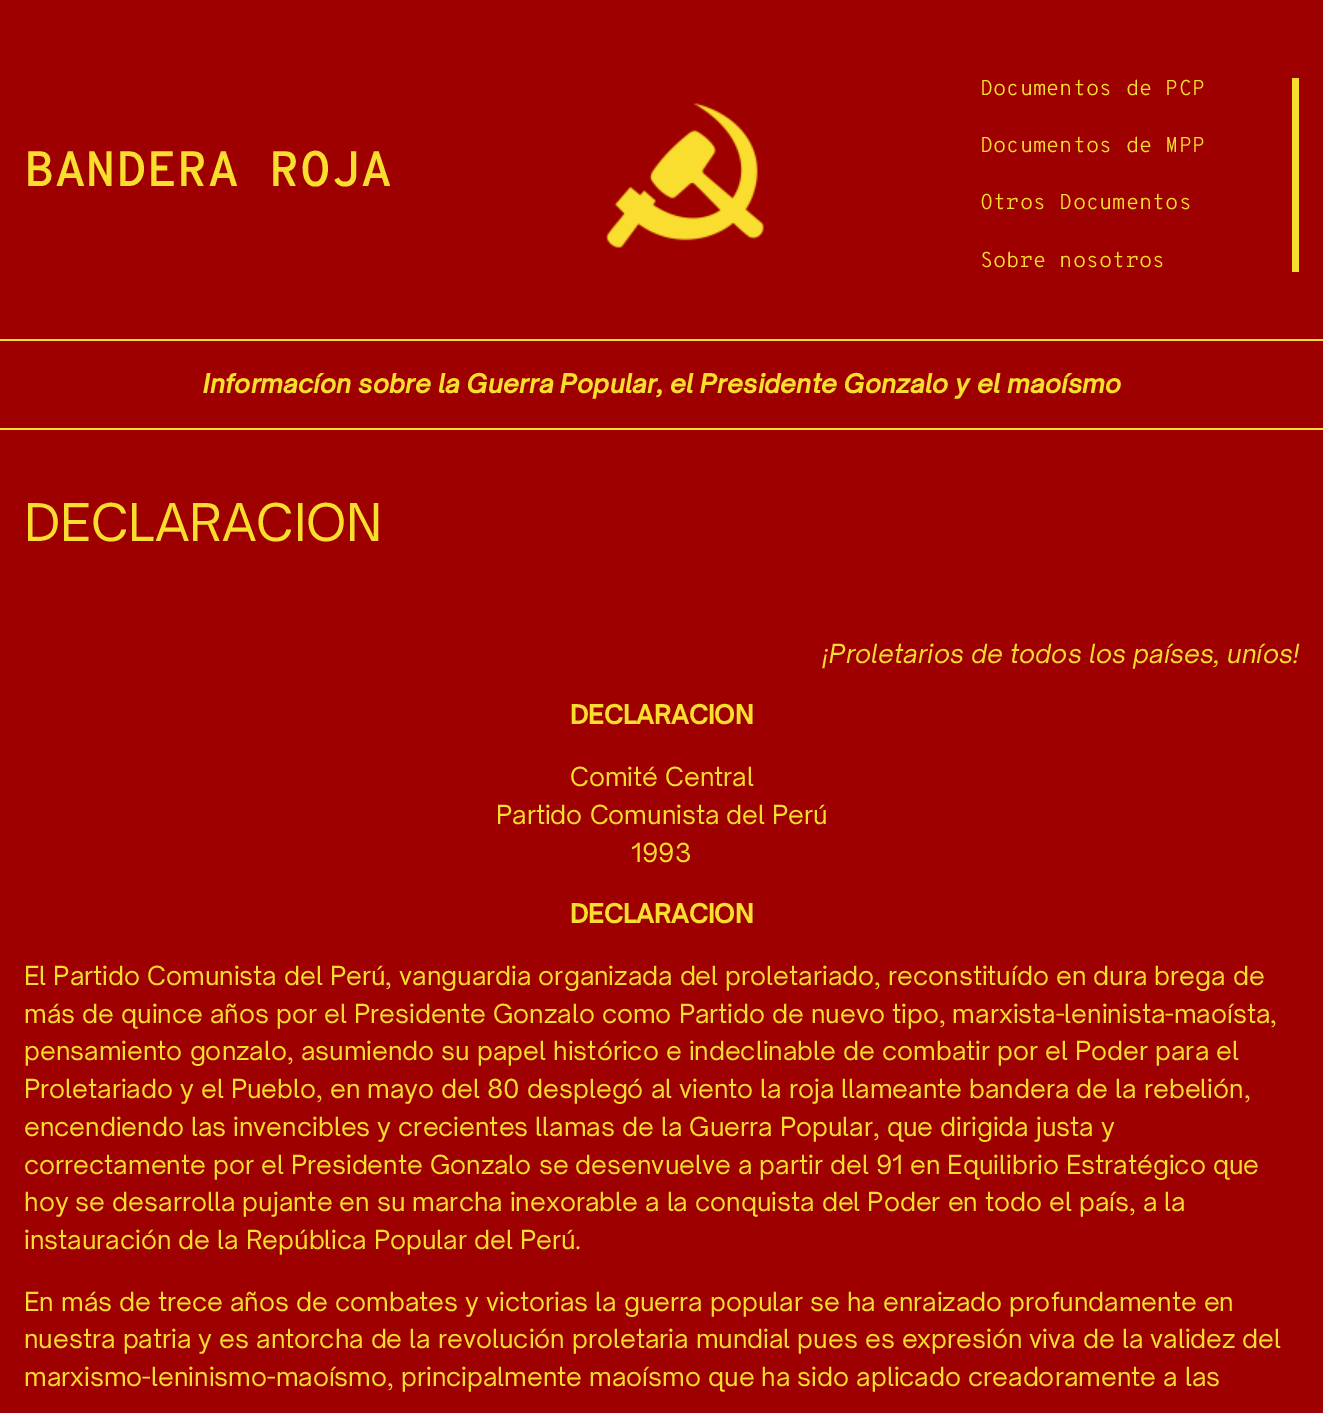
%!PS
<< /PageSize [1323 1413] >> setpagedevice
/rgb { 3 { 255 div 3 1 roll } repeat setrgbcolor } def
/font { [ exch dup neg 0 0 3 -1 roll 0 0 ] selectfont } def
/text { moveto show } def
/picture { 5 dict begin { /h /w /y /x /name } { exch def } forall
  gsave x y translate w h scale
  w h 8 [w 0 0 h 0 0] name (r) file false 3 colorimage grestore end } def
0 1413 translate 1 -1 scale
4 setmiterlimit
158 0 0 rgb
0 0 1323 1413 rectfill
(img_01.rgb) 606 103 158 145 picture
249 222 47 rgb
1292 78 7 194 rectfill
0 339 1323 2 rectfill
0 428 1323 2 rectfill
/OverpassMono-SemiBold 49.75 font
(BANDERA ROJA) 24 186 text
/OverpassMono-Light 21.5 font
(Documentos de PCP) 980 95 text
(Documentos de MPP) 980 152 text
(Otros Documentos) 980 209 text
(Sobre nosotros) 980 267 text
/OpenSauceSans-BoldItalic 25.15 font
(Informacíon sobre la Guerra Popular, el Presidente Gonzalo y el maoísmo) 203 393 text
/OpenSauceSans-Regular 49.75 font
(DECLARACION) 24 541 text
/OpenSauceSans-Italic 25.15 font
(¡Proletarios de todos los países, uníos!) 822 663 text
/OpenSauceSans-Bold 25.15 font
(DECLARACION) 570 724 text
/OpenSauceSans-Regular 25.15 font
(Comité Central) 570 786 text
(Partido Comunista del Perú) 496 824 text
(1993) 631 862 text
/OpenSauceSans-Bold 25.15 font
(DECLARACION) 570 923 text
/OpenSauceSans-Regular 25.15 font
(El Partido Comunista del Perú, vanguardia organizada del proletariado, reconstituído en dura brega de) 24 985 text
(más de quince años por el Presidente Gonzalo como Partido de nuevo tipo, marxista-leninista-maoísta,) 24 1023 text
(pensamiento gonzalo, asumiendo su papel histórico e indeclinable de combatir por el Poder para el) 24 1060 text
(Proletariado y el Pueblo, en mayo del 80 desplegó al viento la roja llameante bandera de la rebelión,) 24 1098 text
(encendiendo las invencibles y crecientes llamas de la Guerra Popular, que dirigida justa y) 24 1136 text
(correctamente por el Presidente Gonzalo se desenvuelve a partir del 91 en Equilibrio Estratégico que) 24 1174 text
(hoy se desarrolla pujante en su marcha inexorable a la conquista del Poder en todo el país, a la) 24 1211 text
(instauración de la República Popular del Perú.) 24 1249 text
(En más de trece años de combates y victorias la guerra popular se ha enraizado profundamente en) 24 1311 text
(nuestra patria y es antorcha de la revolución proletaria mundial pues es expresión viva de la validez del) 24 1348 text
(marxismo-leninismo-maoísmo, principalmente maoísmo que ha sido aplicado creadoramente a las) 24 1386 text
showpage
